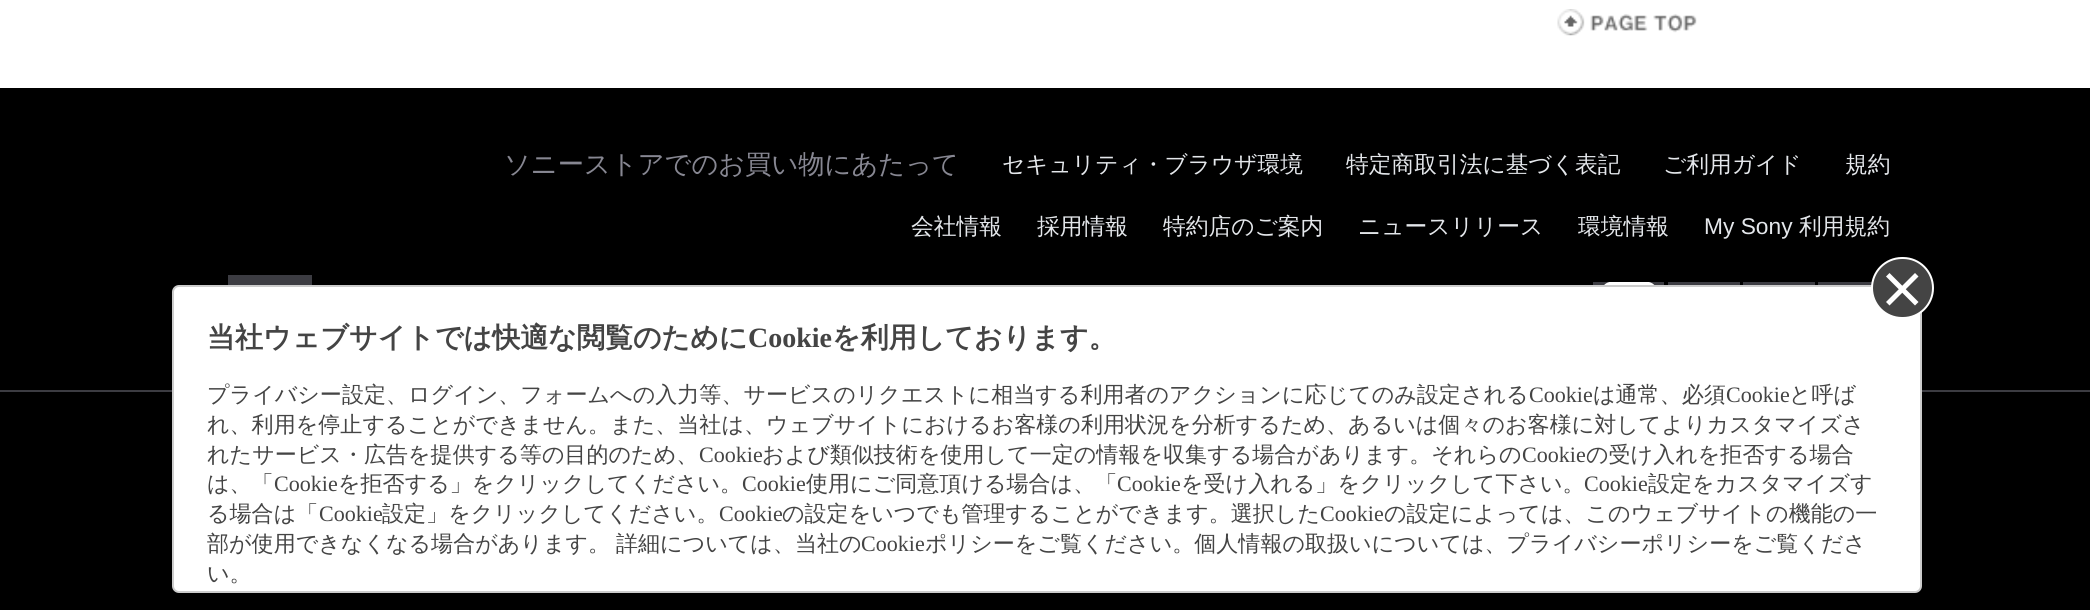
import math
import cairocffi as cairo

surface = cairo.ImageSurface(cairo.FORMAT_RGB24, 2090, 610)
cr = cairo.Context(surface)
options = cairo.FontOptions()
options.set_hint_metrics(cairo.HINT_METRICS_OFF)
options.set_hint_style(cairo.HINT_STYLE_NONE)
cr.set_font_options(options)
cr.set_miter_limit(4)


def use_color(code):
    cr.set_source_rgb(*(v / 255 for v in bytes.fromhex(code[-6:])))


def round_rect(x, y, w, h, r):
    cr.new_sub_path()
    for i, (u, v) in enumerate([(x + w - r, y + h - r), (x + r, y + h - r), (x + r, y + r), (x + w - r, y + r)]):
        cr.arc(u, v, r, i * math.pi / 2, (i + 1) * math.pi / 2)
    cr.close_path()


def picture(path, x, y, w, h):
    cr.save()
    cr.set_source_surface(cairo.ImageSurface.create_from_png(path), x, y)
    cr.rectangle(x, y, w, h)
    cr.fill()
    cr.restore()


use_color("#ffffff")
cr.paint()
picture("img1.png", 1557, 9, 140, 27)
use_color("#000000")
cr.rectangle(0, 88, 2090, 522)
cr.fill()
cr.select_font_face("WenQuanYi Zen Hei Medium")
cr.set_font_size(26.25)
use_color("#878792")
cr.move_to(504, 173)
cr.show_text("ソニーストアでのお買い物にあたって")
cr.set_font_size(22.75)
use_color("#e4e7eb")
cr.move_to(1002, 172)
cr.show_text("セキュリティ・ブラウザ環境")
cr.move_to(1346, 172)
cr.show_text("特定商取引法に基づく表記")
cr.move_to(1663, 172)
cr.show_text("ご利用ガイド")
cr.move_to(1845, 172)
cr.show_text("規約")
cr.move_to(911, 234)
cr.show_text("会社情報")
cr.move_to(1037, 234)
cr.show_text("採用情報")
cr.move_to(1163, 234)
cr.show_text("特約店のご案内")
cr.move_to(1358, 234)
cr.show_text("ニュースリリース")
cr.move_to(1578, 234)
cr.show_text("環境情報")
cr.select_font_face("Liberation Sans")
cr.move_to(1704, 234)
cr.show_text("My Sony")
cr.select_font_face("WenQuanYi Zen Hei Medium")
cr.move_to(1799, 234)
cr.show_text("利用規約")
use_color("#3c3c42")
cr.rectangle(1593, 282, 71, 3)
cr.fill()
picture("img2.png", 1604, 282, 51, 3)
cr.rectangle(1668, 282, 72, 3)
cr.fill()
cr.rectangle(1743, 282, 72, 3)
cr.fill()
cr.rectangle(1818, 282, 54, 3)
cr.fill()
cr.rectangle(228, 275, 84, 10)
cr.fill()
cr.rectangle(0, 390, 2090, 2)
cr.fill()
use_color("#ffffff")
round_rect(173, 286, 1748, 306, 6)
cr.fill_preserve()
use_color("#cccccc")
cr.stroke()
use_color("#444444")
round_rect(1872, 258, 61, 60, 30)
cr.fill_preserve()
use_color("#ffffff")
cr.stroke()
cr.new_path()
cr.move_to(1886, 302)
cr.line_to(1915, 273)
cr.line_to(1918.5, 276.5)
cr.line_to(1889.5, 305.5)
cr.close_path()
cr.fill()
cr.new_path()
cr.move_to(1889.5, 273)
cr.line_to(1918.5, 302)
cr.line_to(1915, 305.5)
cr.line_to(1886, 276.5)
cr.close_path()
cr.fill()
cr.select_font_face("WenQuanYi Zen Hei", cairo.FONT_SLANT_NORMAL, cairo.FONT_WEIGHT_BOLD)
cr.set_font_size(28)
use_color("#444444")
cr.move_to(207, 347)
cr.show_text("当社ウェブサイトでは快適な閲覧のために")
cr.select_font_face("Liberation Serif", cairo.FONT_SLANT_NORMAL, cairo.FONT_WEIGHT_BOLD)
cr.move_to(748, 347)
cr.show_text("Cookie")
cr.select_font_face("WenQuanYi Zen Hei", cairo.FONT_SLANT_NORMAL, cairo.FONT_WEIGHT_BOLD)
cr.move_to(832, 347)
cr.show_text("を利用しております。")
cr.select_font_face("WenQuanYi Zen Hei Medium")
cr.set_font_size(22.05)
cr.move_to(207, 402)
cr.show_text("プライバシー設定、ログイン、フォームへの入力等、サービスのリクエストに相当する利用者のアクションに応じてのみ設定される")
cr.select_font_face("Liberation Serif")
cr.move_to(1529, 402)
cr.show_text("Cookie")
cr.select_font_face("WenQuanYi Zen Hei Medium")
cr.move_to(1593, 402)
cr.show_text("は通常、必須")
cr.select_font_face("Liberation Serif")
cr.move_to(1726, 402)
cr.show_text("Cookie")
cr.select_font_face("WenQuanYi Zen Hei Medium")
cr.move_to(1789, 402)
cr.show_text("と呼ば")
cr.move_to(207, 432)
cr.show_text("れ、利用を停止することができません。また、当社は、ウェブサイトにおけるお客様の利用状況を分析するため、あるいは個々のお客様に対してよりカスタマイズさ")
cr.move_to(207, 462)
cr.show_text("れたサービス・広告を提供する等の目的のため、")
cr.select_font_face("Liberation Serif")
cr.move_to(699, 462)
cr.show_text("Cookie")
cr.select_font_face("WenQuanYi Zen Hei Medium")
cr.move_to(762, 462)
cr.show_text("および類似技術を使用して一定の情報を収集する場合があります。それらの")
cr.select_font_face("Liberation Serif")
cr.move_to(1522, 462)
cr.show_text("Cookie")
cr.select_font_face("WenQuanYi Zen Hei Medium")
cr.move_to(1586, 462)
cr.show_text("の受け入れを拒否する場合")
cr.move_to(207, 491)
cr.show_text("は、「")
cr.select_font_face("Liberation Serif")
cr.move_to(274, 491)
cr.show_text("Cookie")
cr.select_font_face("WenQuanYi Zen Hei Medium")
cr.move_to(338, 491)
cr.show_text("を拒否する」をクリックしてください。")
cr.select_font_face("Liberation Serif")
cr.move_to(742, 491)
cr.show_text("Cookie")
cr.select_font_face("WenQuanYi Zen Hei Medium")
cr.move_to(806, 491)
cr.show_text("使用にご同意頂ける場合は、「")
cr.select_font_face("Liberation Serif")
cr.move_to(1117, 491)
cr.show_text("Cookie")
cr.select_font_face("WenQuanYi Zen Hei Medium")
cr.move_to(1181, 491)
cr.show_text("を受け入れる」をクリックして下さい。")
cr.select_font_face("Liberation Serif")
cr.move_to(1584, 491)
cr.show_text("Cookie")
cr.select_font_face("WenQuanYi Zen Hei Medium")
cr.move_to(1648, 491)
cr.show_text("設定をカスタマイズす")
cr.move_to(207, 521)
cr.show_text("る場合は「")
cr.select_font_face("Liberation Serif")
cr.move_to(319, 521)
cr.show_text("Cookie")
cr.select_font_face("WenQuanYi Zen Hei Medium")
cr.move_to(382, 521)
cr.show_text("設定」をクリックしてください。")
cr.select_font_face("Liberation Serif")
cr.move_to(719, 521)
cr.show_text("Cookie")
cr.select_font_face("WenQuanYi Zen Hei Medium")
cr.move_to(782, 521)
cr.show_text("の設定をいつでも管理することができます。選択した")
cr.select_font_face("Liberation Serif")
cr.move_to(1320, 521)
cr.show_text("Cookie")
cr.select_font_face("WenQuanYi Zen Hei Medium")
cr.move_to(1384, 521)
cr.show_text("の設定によっては、このウェブサイトの機能の一")
cr.move_to(207, 551)
cr.show_text("部が使用できなくなる場合があります。")
cr.move_to(616, 551)
cr.show_text("詳細については、当社の")
cr.select_font_face("Liberation Serif")
cr.move_to(861, 551)
cr.show_text("Cookie")
cr.select_font_face("WenQuanYi Zen Hei Medium")
cr.move_to(925, 551)
cr.show_text("ポリシーをご覧ください。個人情報の取扱いについては、プライバシーポリシーをご覧くださ")
cr.move_to(207, 581)
cr.show_text("い。")
surface.write_to_png("result.png")
